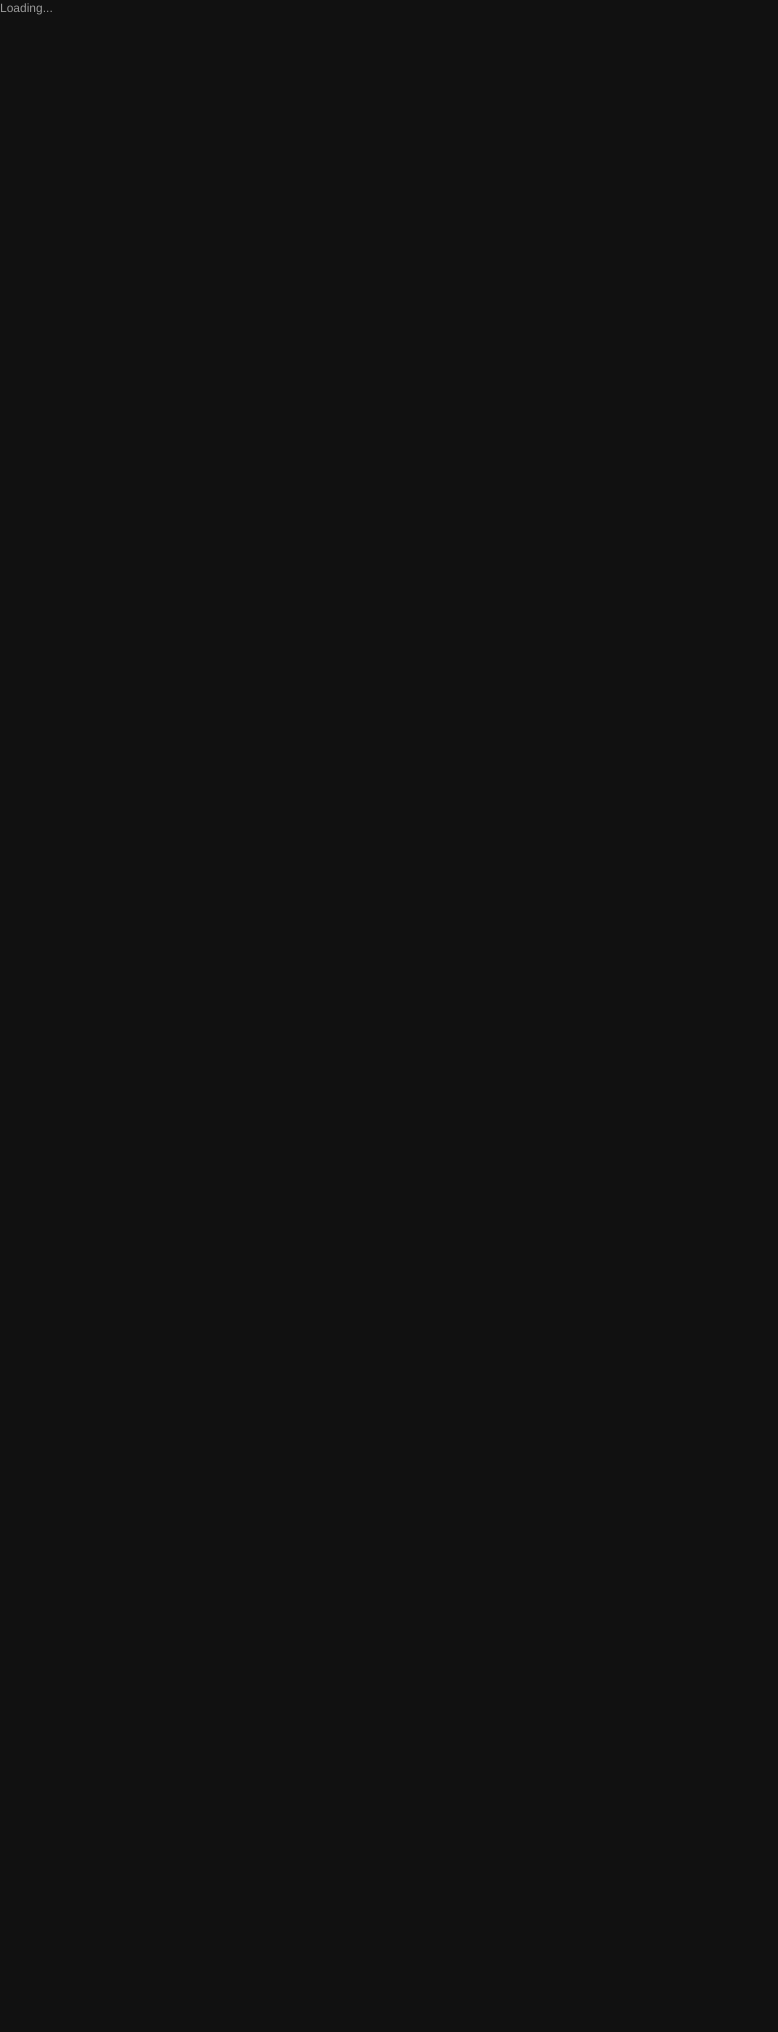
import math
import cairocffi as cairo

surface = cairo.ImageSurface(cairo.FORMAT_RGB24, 778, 2032)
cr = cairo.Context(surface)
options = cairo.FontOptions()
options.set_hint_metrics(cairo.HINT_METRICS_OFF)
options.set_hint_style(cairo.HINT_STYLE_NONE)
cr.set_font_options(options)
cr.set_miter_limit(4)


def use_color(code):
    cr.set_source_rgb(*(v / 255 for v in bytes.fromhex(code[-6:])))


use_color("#111111")
cr.paint()
cr.select_font_face("Liberation Sans")
cr.set_font_size(12)
use_color("#999999")
cr.move_to(0, 12)
cr.show_text("Loading...")
surface.write_to_png("result.png")
